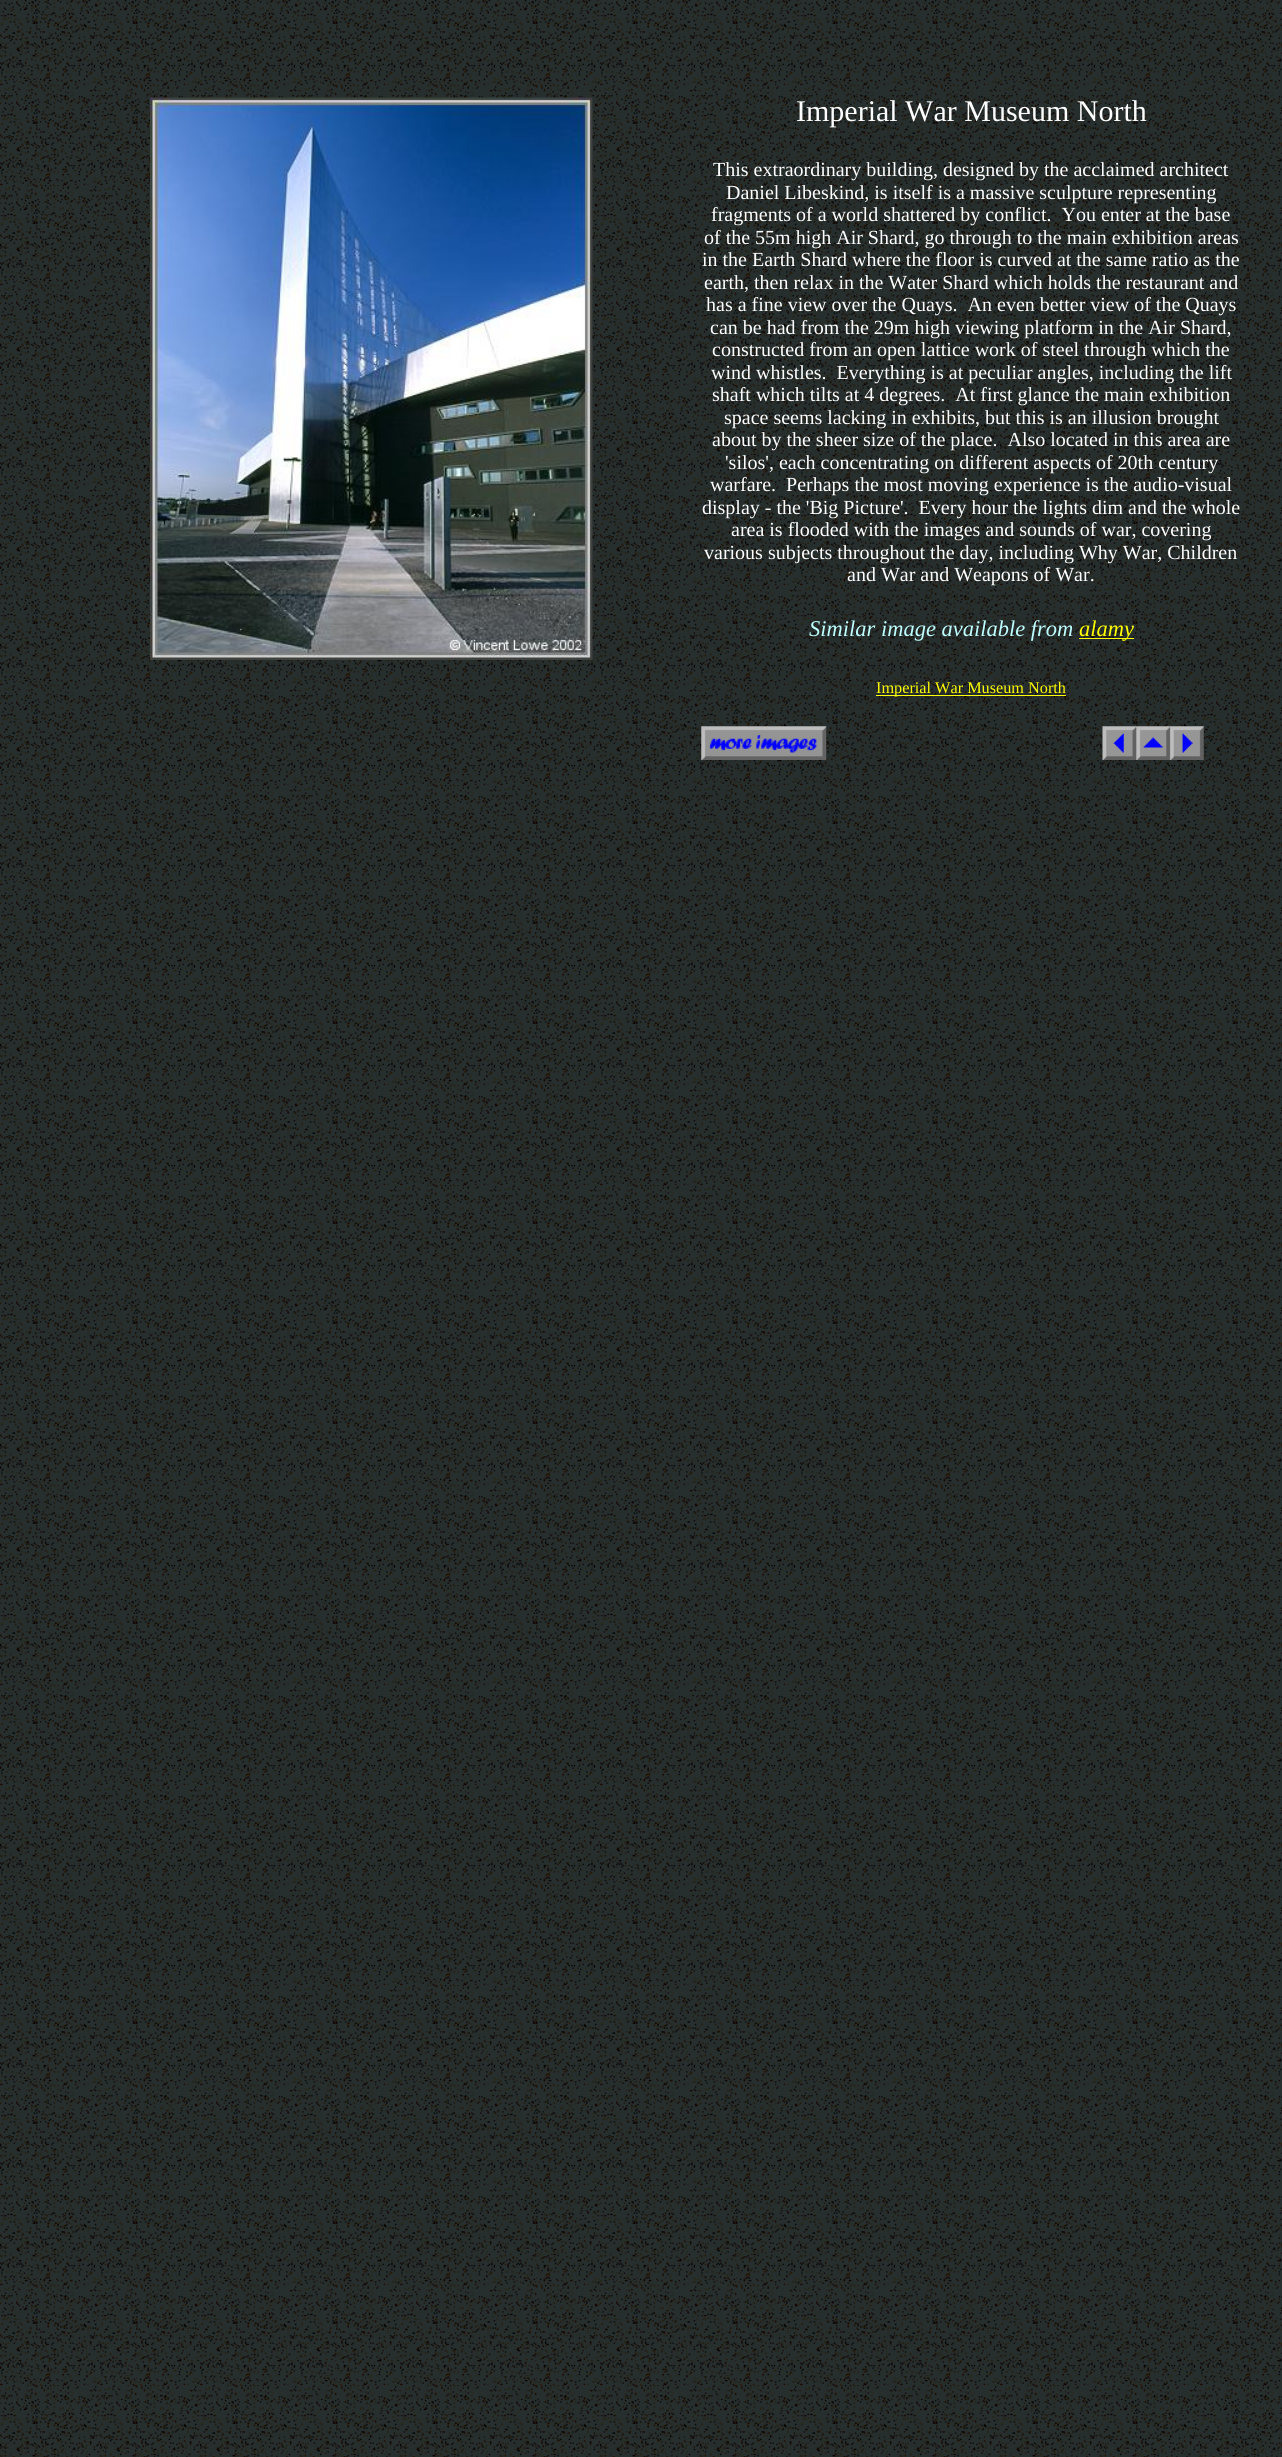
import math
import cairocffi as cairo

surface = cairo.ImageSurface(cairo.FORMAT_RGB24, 1282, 2457)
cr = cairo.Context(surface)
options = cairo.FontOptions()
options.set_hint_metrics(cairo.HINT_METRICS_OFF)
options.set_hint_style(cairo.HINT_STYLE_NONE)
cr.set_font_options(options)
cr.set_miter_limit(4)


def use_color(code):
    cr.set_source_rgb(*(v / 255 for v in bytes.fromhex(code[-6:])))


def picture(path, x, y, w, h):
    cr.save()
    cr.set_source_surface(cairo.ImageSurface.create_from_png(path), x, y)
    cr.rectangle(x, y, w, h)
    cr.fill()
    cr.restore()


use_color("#ffffff")
cr.paint()
picture("img1.png", 0, 0, 1282, 2457)
picture("img2.png", 150, 97, 443, 563)
cr.select_font_face("Liberation Serif")
cr.set_font_size(30)
use_color("#ffffff")
cr.move_to(796, 121)
cr.show_text("Imperial War Museum North")
cr.set_font_size(20)
cr.move_to(713, 176)
cr.show_text("This extraordinary building, designed by the acclaimed architect")
cr.move_to(726, 199)
cr.show_text("Daniel Libeskind, is itself is a massive sculpture representing")
cr.move_to(711, 221)
cr.show_text("fragments of a world shattered by conflict.  You enter at the base")
cr.move_to(704, 244)
cr.show_text("of the 55m high Air Shard, go through to the main exhibition areas")
cr.move_to(702, 266)
cr.show_text("in the Earth Shard where the floor is curved at the same ratio as the")
cr.move_to(704, 289)
cr.show_text("earth, then relax in the Water Shard which holds the restaurant and")
cr.move_to(706, 311)
cr.show_text("has a fine view over the Quays.  An even better view of the Quays")
cr.move_to(710, 334)
cr.show_text("can be had from the 29m high viewing platform in the Air Shard,")
cr.move_to(712, 356)
cr.show_text("constructed from an open lattice work of steel through which the")
cr.move_to(711, 379)
cr.show_text("wind whistles.  Everything is at peculiar angles, including the lift")
cr.move_to(712, 401)
cr.show_text("shaft which tilts at 4 degrees.  At first glance the main exhibition")
cr.move_to(724, 424)
cr.show_text("space seems lacking in exhibits, but this is an illusion brought")
cr.move_to(712, 446)
cr.show_text("about by the sheer size of the place.  Also located in this area are")
cr.move_to(725, 469)
cr.show_text("'silos', each concentrating on different aspects of 20th century")
cr.move_to(710, 491)
cr.show_text("warfare.  Perhaps the most moving experience is the audio-visual")
cr.move_to(702, 514)
cr.show_text("display - the 'Big Picture'.  Every hour the lights dim and the whole")
cr.move_to(731, 536)
cr.show_text("area is flooded with the images and sounds of war, covering")
cr.move_to(704, 559)
cr.show_text("various subjects throughout the day, including Why War, Children")
cr.move_to(847, 581)
cr.show_text("and War and Weapons of War.")
cr.select_font_face("Liberation Serif", cairo.FONT_SLANT_ITALIC)
cr.set_font_size(22.5)
use_color("#c0ffff")
cr.move_to(809, 636)
cr.show_text("Similar image available from")
use_color("#ffff00")
cr.rectangle(1079, 638, 55, 1)
cr.fill()
cr.move_to(1079, 636)
cr.show_text("alamy")
cr.rectangle(876, 695, 190, 1)
cr.fill()
cr.select_font_face("Liberation Serif")
cr.set_font_size(16.25)
cr.move_to(876, 693)
cr.show_text("Imperial War Museum North")
picture("img3.png", 701, 726, 126, 34)
picture("img4.png", 1102, 726, 102, 34)
surface.write_to_png("result.png")
